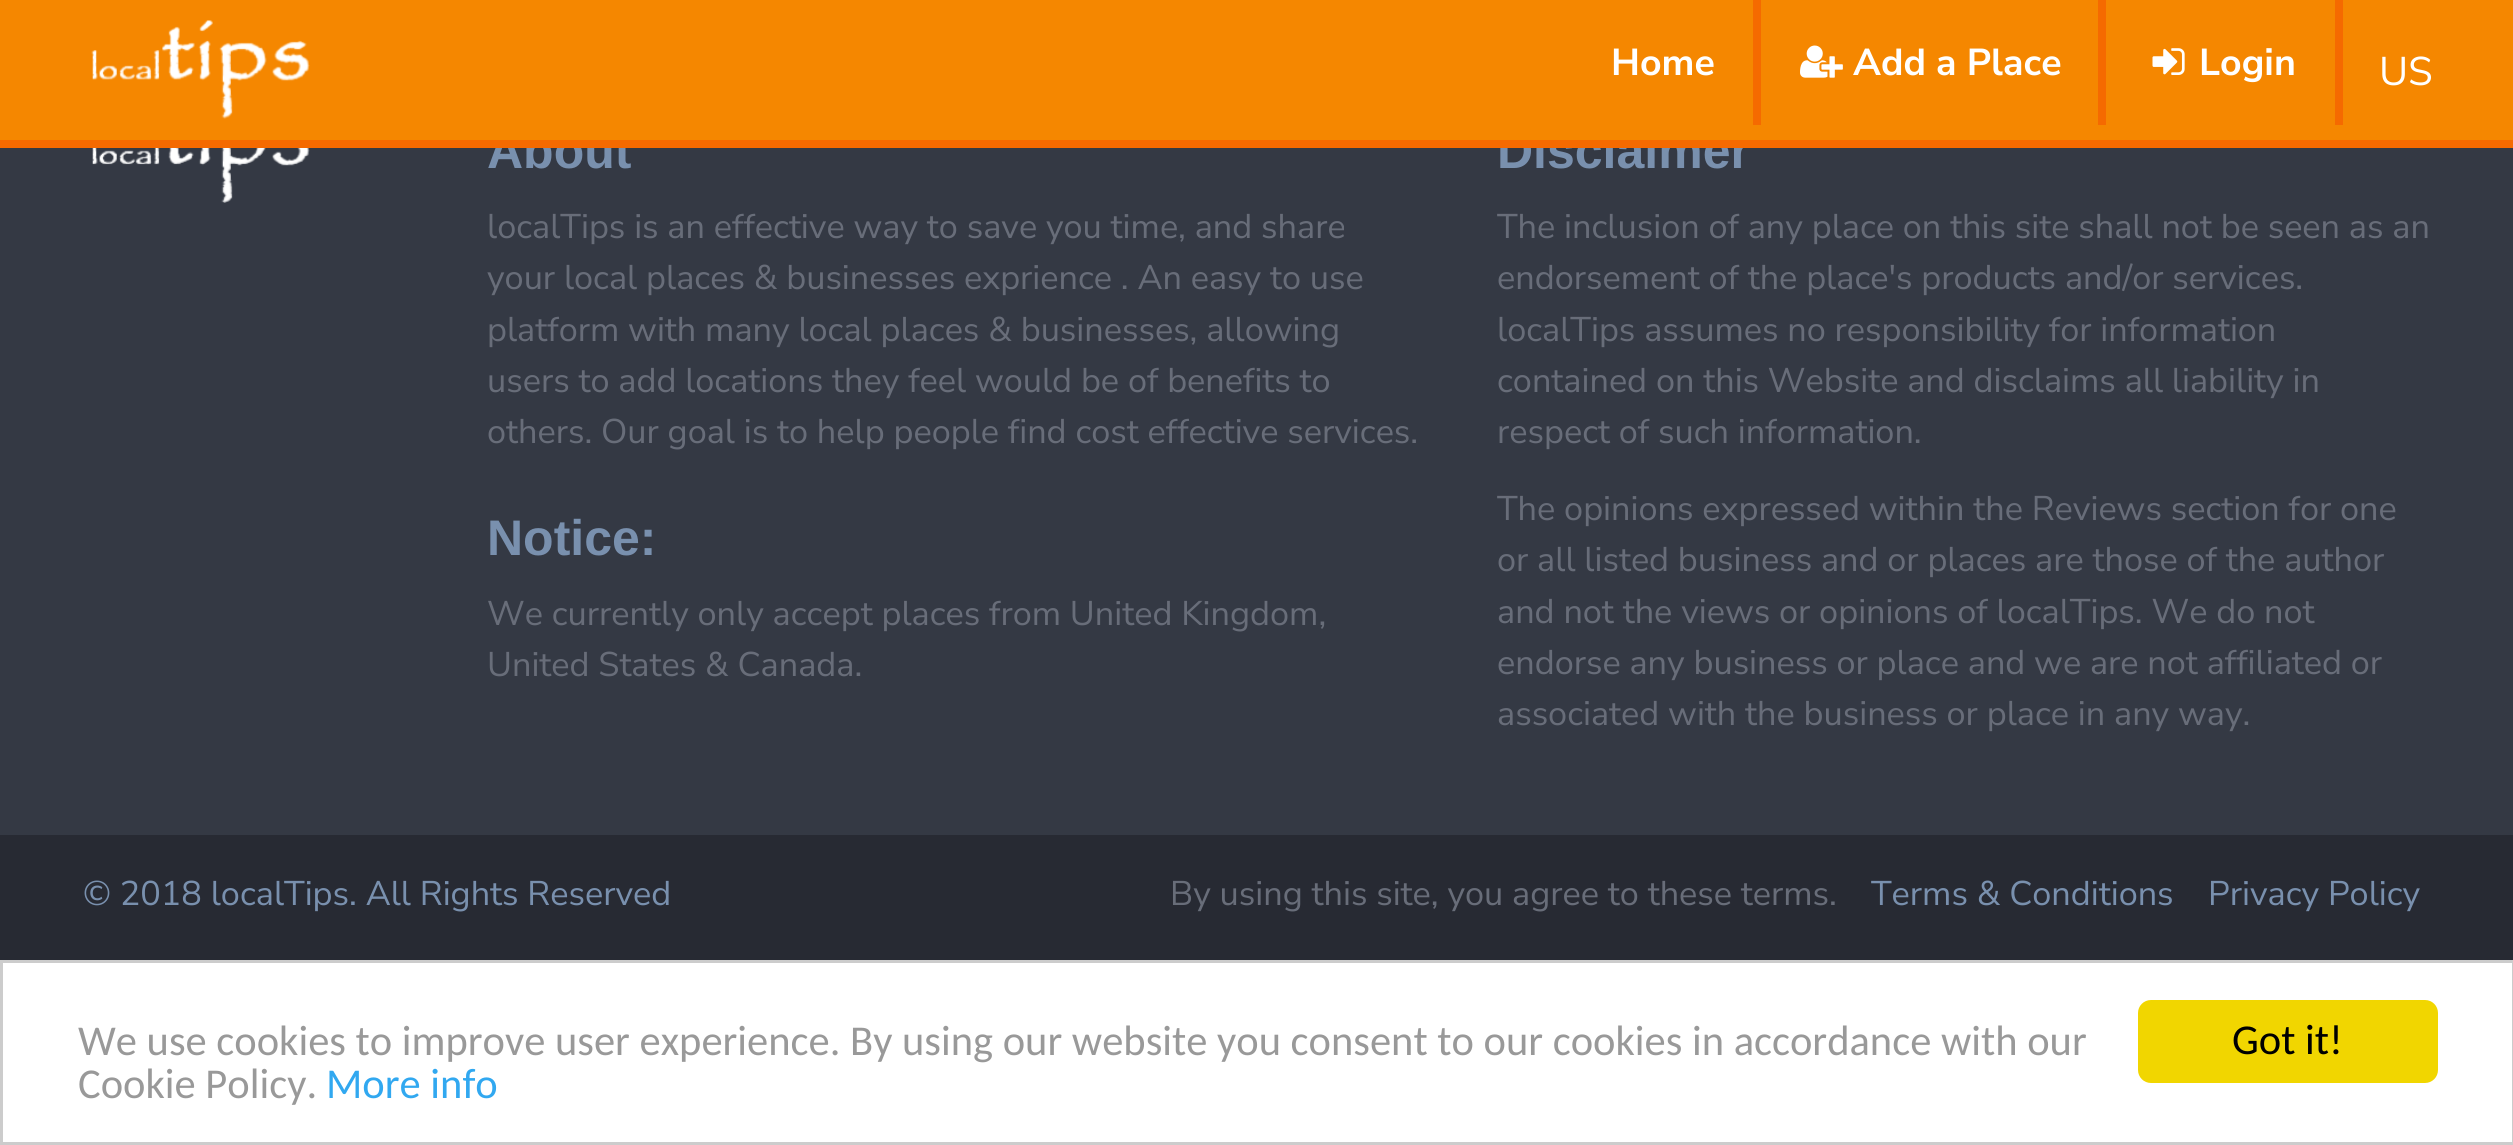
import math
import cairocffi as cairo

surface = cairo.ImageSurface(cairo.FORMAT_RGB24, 2513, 1145)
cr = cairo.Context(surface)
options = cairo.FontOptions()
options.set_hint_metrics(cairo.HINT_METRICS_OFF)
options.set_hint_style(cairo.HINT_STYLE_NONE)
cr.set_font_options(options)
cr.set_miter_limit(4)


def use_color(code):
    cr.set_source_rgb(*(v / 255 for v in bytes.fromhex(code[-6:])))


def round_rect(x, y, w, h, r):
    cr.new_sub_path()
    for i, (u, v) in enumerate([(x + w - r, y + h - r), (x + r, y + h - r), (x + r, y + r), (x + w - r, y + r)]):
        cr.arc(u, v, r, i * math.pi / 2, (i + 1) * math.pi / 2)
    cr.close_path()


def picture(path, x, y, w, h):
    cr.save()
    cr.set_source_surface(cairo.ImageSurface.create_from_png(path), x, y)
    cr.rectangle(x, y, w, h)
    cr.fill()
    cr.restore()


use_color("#272a33")
cr.paint()
use_color("#343944")
cr.rectangle(0, 148, 2513, 687)
cr.fill()
cr.select_font_face("Liberation Sans", cairo.FONT_SLANT_NORMAL, cairo.FONT_WEIGHT_BOLD)
cr.set_font_size(50)
use_color("#7990ae")
cr.move_to(487, 168)
cr.show_text("About")
cr.move_to(1497, 168)
cr.show_text("Disclaimer")
use_color("#f58700")
cr.rectangle(0, 0, 2513, 140)
cr.fill()
use_color("#f56a00")
cr.rectangle(0, 140, 2513, 8)
cr.fill()
picture("img1.png", 91, 20, 219, 99)
cr.rectangle(1753, 0, 8, 125)
cr.fill()
cr.select_font_face("Nunito Sans", cairo.FONT_SLANT_NORMAL, cairo.FONT_WEIGHT_BOLD)
cr.set_font_size(37.5)
use_color("#ffffff")
cr.move_to(1611, 75)
cr.show_text("Home")
use_color("#f56a00")
cr.rectangle(2098, 0, 8, 125)
cr.fill()
picture("img2.png", 1800, 45, 43, 33)
use_color("#ffffff")
cr.move_to(1853, 75)
cr.show_text("Add a Place")
use_color("#f56a00")
cr.rectangle(2335, 0, 8, 125)
cr.fill()
picture("img3.png", 2152, 48, 33, 27)
use_color("#ffffff")
cr.move_to(2199, 75)
cr.show_text("Login")
cr.select_font_face("Nunito Sans")
cr.set_font_size(40)
cr.move_to(2379, 85)
cr.show_text("US")
picture("img4.png", 92, 148, 218, 55)
cr.set_font_size(34.25)
use_color("#686d79")
cr.move_to(487, 238)
cr.show_text("localTips is an effective way to save you time, and share")
cr.move_to(487, 289)
cr.show_text("your local places & businesses exprience . An easy to use")
cr.move_to(487, 341)
cr.show_text("platform with many local places & businesses, allowing")
cr.move_to(487, 392)
cr.show_text("users to add locations they feel would be of benefits to")
cr.move_to(487, 443)
cr.show_text("others. Our goal is to help people find cost effective services.")
cr.select_font_face("Liberation Sans", cairo.FONT_SLANT_NORMAL, cairo.FONT_WEIGHT_BOLD)
cr.set_font_size(50)
use_color("#7990ae")
cr.move_to(487, 555)
cr.show_text("Notice:")
cr.select_font_face("Nunito Sans")
cr.set_font_size(34.25)
use_color("#686d79")
cr.move_to(487, 625)
cr.show_text("We currently only accept places from United Kingdom,")
cr.move_to(487, 676)
cr.show_text("United States & Canada.")
cr.move_to(1497, 238)
cr.show_text("The inclusion of any place on this site shall not be seen as an")
cr.move_to(1497, 289)
cr.show_text("endorsement of the place's products and/or services.")
cr.move_to(1497, 341)
cr.show_text("localTips assumes no responsibility for information")
cr.move_to(1497, 392)
cr.show_text("contained on this Website and disclaims all liability in")
cr.move_to(1497, 443)
cr.show_text("respect of such information.")
cr.move_to(1497, 520)
cr.show_text("The opinions expressed within the Reviews section for one")
cr.move_to(1497, 571)
cr.show_text("or all listed business and or places are those of the author")
cr.move_to(1497, 623)
cr.show_text("and not the views or opinions of localTips. We do not")
cr.move_to(1497, 674)
cr.show_text("endorse any business or place and we are not affiliated or")
cr.move_to(1497, 725)
cr.show_text("associated with the business or place in any way.")
use_color("#7990ae")
cr.move_to(83, 905)
cr.show_text("© 2018 localTips. All Rights Reserved")
use_color("#686d79")
cr.move_to(1170, 905)
cr.show_text("By using this site, you agree to these terms.")
use_color("#7990ae")
cr.move_to(1871, 905)
cr.show_text("Terms & Conditions")
cr.move_to(2208, 905)
cr.show_text("Privacy Policy")
use_color("#ffffff")
cr.rectangle(1.5, 961.5, 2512, 182)
cr.fill_preserve()
use_color("#cccccc")
cr.set_line_width(3)
cr.stroke()
cr.select_font_face("Carlito")
cr.set_font_size(42.5)
use_color("#999999")
cr.move_to(78, 1055)
cr.show_text("We use cookies to improve user experience. By using our website you consent to our cookies in accordance with our")
cr.move_to(78, 1098)
cr.show_text("Cookie Policy.")
use_color("#31a8f0")
cr.move_to(326, 1098)
cr.show_text("More info")
use_color("#f1d600")
round_rect(2138, 1000, 300, 83, 13)
cr.fill()
use_color("#000000")
cr.move_to(2232, 1054)
cr.show_text("Got it!")
surface.write_to_png("result.png")
